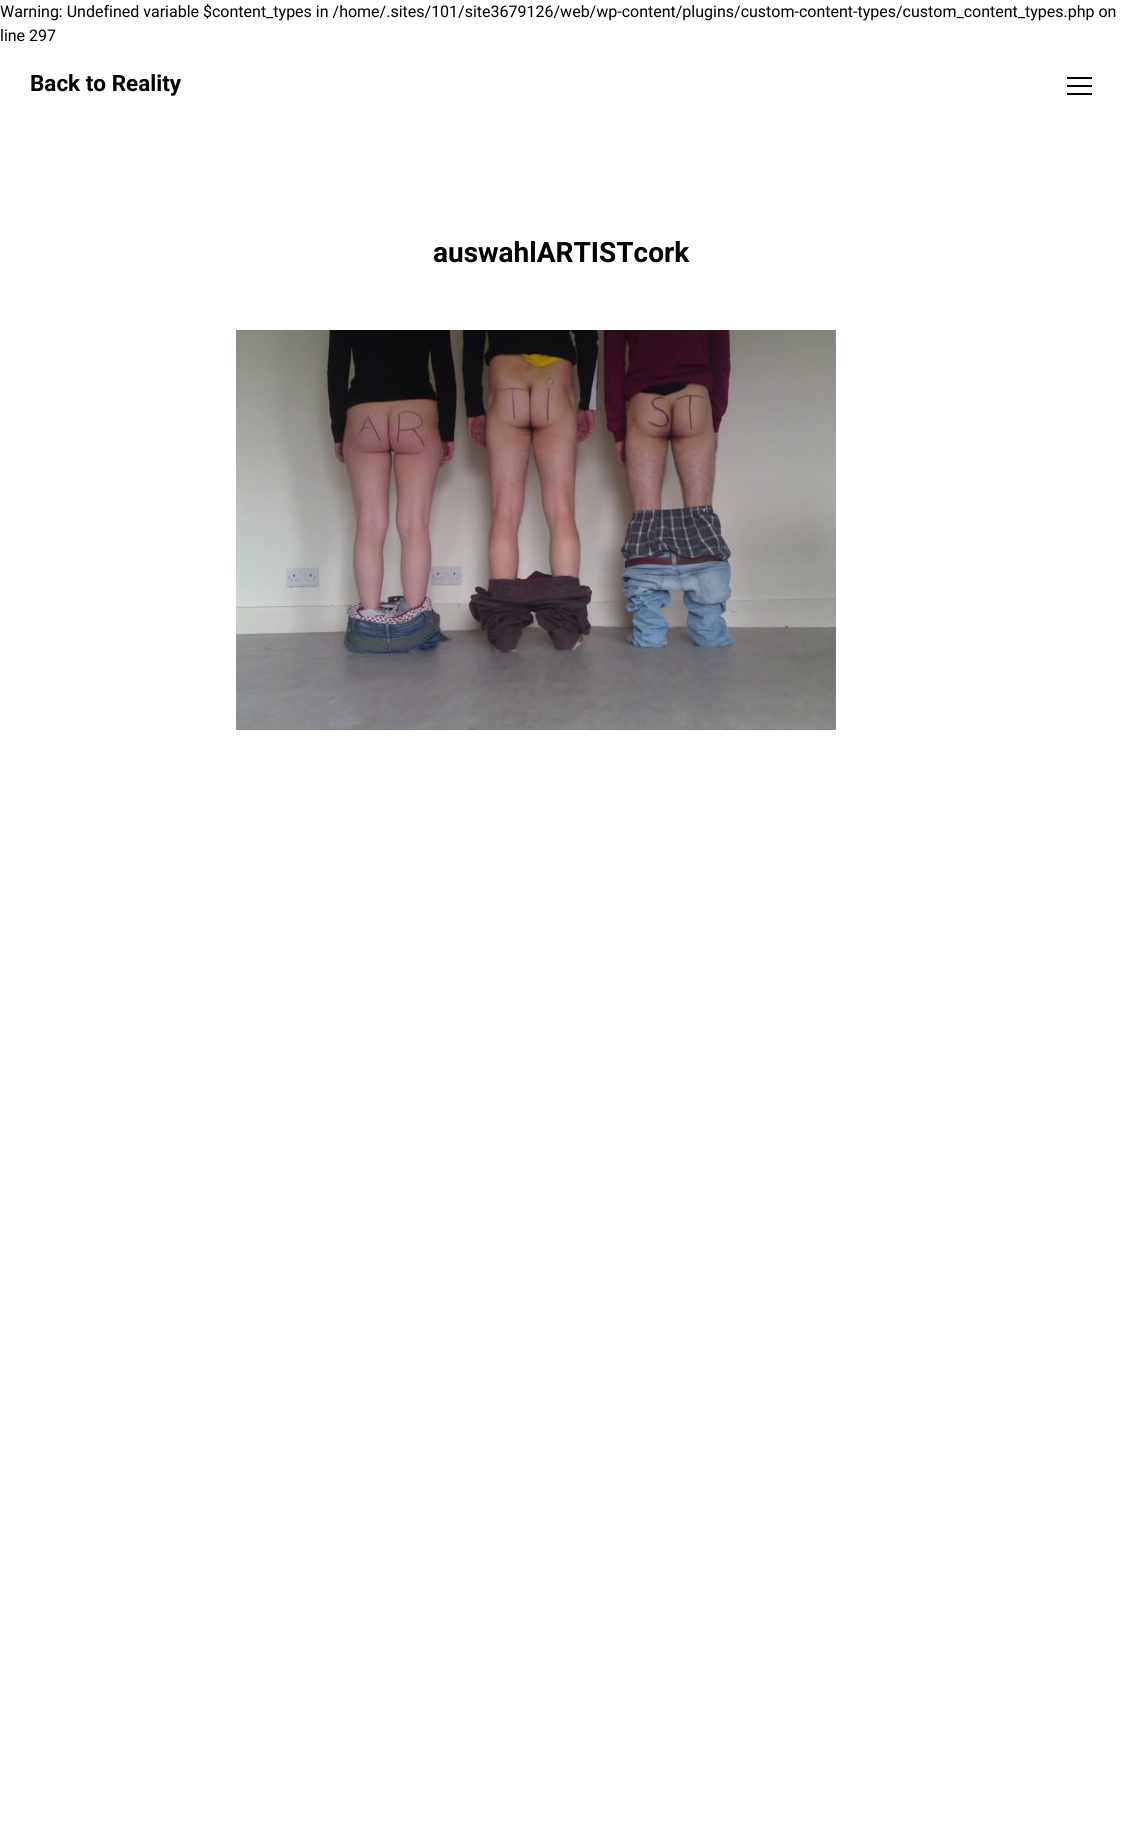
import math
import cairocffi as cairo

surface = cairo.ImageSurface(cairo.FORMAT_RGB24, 1122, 1828)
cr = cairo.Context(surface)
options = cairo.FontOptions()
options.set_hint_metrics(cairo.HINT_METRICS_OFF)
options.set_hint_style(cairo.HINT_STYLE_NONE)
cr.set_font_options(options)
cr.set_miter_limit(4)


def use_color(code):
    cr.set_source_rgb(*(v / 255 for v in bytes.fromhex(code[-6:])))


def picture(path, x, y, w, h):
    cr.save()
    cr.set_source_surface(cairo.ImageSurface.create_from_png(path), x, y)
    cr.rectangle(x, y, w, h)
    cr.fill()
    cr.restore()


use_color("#ffffff")
cr.paint()
cr.select_font_face("Roboto")
cr.set_font_size(16)
use_color("#000000")
cr.move_to(0, 17)
cr.show_text("Warning: Undefined variable $content_types in /home/.sites/101/site3679126/web/wp-content/plugins/custom-content-types/custom_content_types.php on")
cr.move_to(0, 41)
cr.show_text("line 297")
cr.select_font_face("Roboto", cairo.FONT_SLANT_NORMAL, cairo.FONT_WEIGHT_BOLD)
cr.set_font_size(22.5)
cr.move_to(30, 91)
cr.show_text("Back to Reality")
cr.rectangle(1067, 77, 25, 2)
cr.fill()
cr.rectangle(1067, 85, 25, 2)
cr.fill()
cr.rectangle(1067, 93, 25, 2)
cr.fill()
cr.set_font_size(28)
cr.move_to(433, 262)
cr.show_text("auswahlARTISTcork")
picture("img1.png", 236, 330, 600, 400)
surface.write_to_png("result.png")
